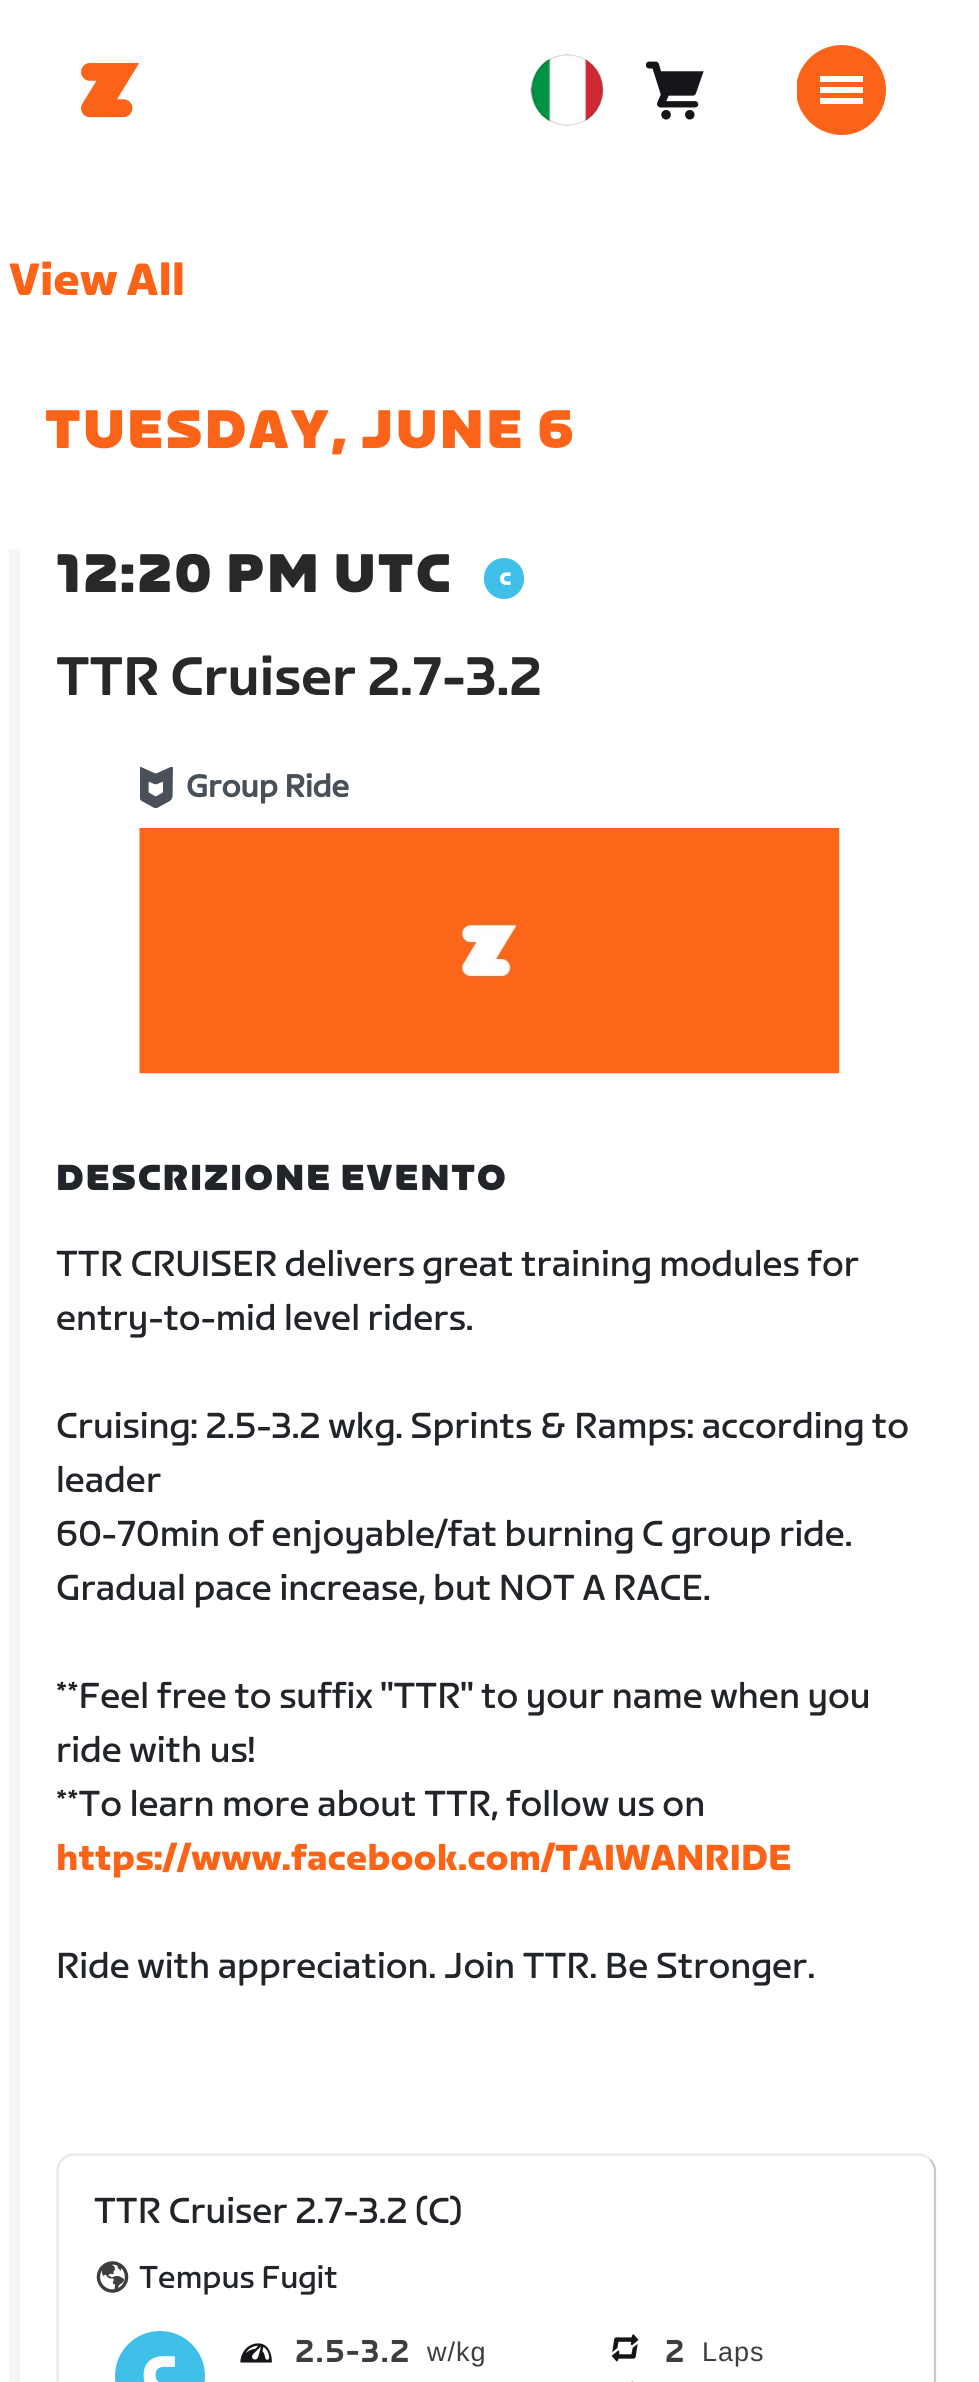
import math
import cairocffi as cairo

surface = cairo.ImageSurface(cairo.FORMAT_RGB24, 979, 2382)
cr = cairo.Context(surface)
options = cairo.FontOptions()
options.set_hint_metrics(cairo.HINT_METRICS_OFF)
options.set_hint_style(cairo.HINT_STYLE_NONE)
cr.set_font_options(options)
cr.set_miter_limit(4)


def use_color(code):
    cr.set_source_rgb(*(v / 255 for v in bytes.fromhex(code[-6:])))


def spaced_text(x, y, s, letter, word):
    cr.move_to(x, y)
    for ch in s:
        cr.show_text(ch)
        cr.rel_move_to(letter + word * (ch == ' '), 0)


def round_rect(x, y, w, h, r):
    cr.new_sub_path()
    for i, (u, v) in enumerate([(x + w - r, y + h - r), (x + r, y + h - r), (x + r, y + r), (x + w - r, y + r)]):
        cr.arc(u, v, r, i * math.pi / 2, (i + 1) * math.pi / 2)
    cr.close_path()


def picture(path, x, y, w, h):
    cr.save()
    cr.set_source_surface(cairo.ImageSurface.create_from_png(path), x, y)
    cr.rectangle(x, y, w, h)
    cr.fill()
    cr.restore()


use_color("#ffffff")
cr.paint()
picture("img1.png", 81, 63, 59, 55)
picture("img2.png", 530, 54, 74, 72)
picture("img3.png", 646, 61, 58, 59)
cr.save()
cr.rectangle(797, 45, 90, 90)
cr.clip()
use_color("#fb6418")
cr.new_path()
cr.move_to(796, 90)
cr.curve_to(796, 65, 817, 45, 842, 45)
cr.curve_to(866, 45, 886, 65, 886, 90)
cr.curve_to(886, 115, 866, 135, 842, 135)
cr.curve_to(817, 135, 796, 115, 796, 90)
cr.close_path()
cr.fill()
cr.restore()
use_color("#ffffff")
cr.rectangle(820, 76, 43, 6)
cr.fill()
cr.rectangle(820, 87, 43, 6)
cr.fill()
cr.rectangle(820, 98, 43, 6)
cr.fill()
cr.select_font_face("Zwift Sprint", cairo.FONT_SLANT_NORMAL, cairo.FONT_WEIGHT_BOLD)
cr.set_font_size(45)
use_color("#fb6418")
cr.move_to(9, 295)
cr.show_text("View All")
cr.select_font_face("Zwift Sprint Black")
cr.set_font_size(54)
spaced_text(45, 448, "TUESDAY, JUNE 6", 2.25, 0)
use_color("#f5f5f5")
cr.rectangle(9, 549, 11, 1833)
cr.fill()
use_color("#282828")
spaced_text(56, 592, "12:20 PM UTC", 2.25, 0)
use_color("#3ec0e9")
round_rect(484, 558, 40, 41, 20)
cr.fill()
picture("img4.png", 500, 572, 11, 13)
cr.select_font_face("Zwift Sprint Medium")
use_color("#282828")
cr.move_to(56, 695)
cr.show_text("TTR Cruiser 2.7-3.2")
picture("img5.png", 140, 767, 33, 41)
cr.select_font_face("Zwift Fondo", cairo.FONT_SLANT_NORMAL, cairo.FONT_WEIGHT_BOLD)
cr.set_font_size(31.5)
use_color("#495057")
cr.move_to(186, 797)
cr.show_text("Group Ride")
picture("img6.png", 139, 828, 701, 246)
cr.select_font_face("Zwift Sprint Black")
cr.set_font_size(36)
use_color("#212529")
spaced_text(56, 1190, "DESCRIZIONE EVENTO", 1.75, 0)
cr.select_font_face("Zwift Sprint")
cr.move_to(56, 1276)
cr.show_text("TTR CRUISER delivers great training modules for")
cr.move_to(56, 1330)
cr.show_text("entry-to-mid level riders.")
cr.move_to(56, 1438)
cr.show_text("Cruising: 2.5-3.2 wkg. Sprints & Ramps: according to")
cr.move_to(56, 1492)
cr.show_text("leader")
cr.move_to(56, 1546)
cr.show_text("60-70min of enjoyable/fat burning C group ride.")
cr.move_to(56, 1600)
cr.show_text("Gradual pace increase, but NOT A RACE.")
cr.move_to(56, 1708)
cr.show_text("**Feel free to suffix \"TTR\" to your name when you")
cr.move_to(56, 1762)
cr.show_text("ride with us!")
cr.move_to(56, 1816)
cr.show_text("**To learn more about TTR, follow us on")
cr.select_font_face("Zwift Sprint", cairo.FONT_SLANT_NORMAL, cairo.FONT_WEIGHT_BOLD)
use_color("#fb6418")
cr.move_to(56, 1870)
cr.show_text("https://www.facebook.com/TAIWANRIDE")
cr.select_font_face("Zwift Sprint")
use_color("#212529")
cr.move_to(56, 1978)
cr.show_text("Ride with appreciation. Join TTR. Be Stronger.")
cr.new_path()
cr.move_to(930, 2159.5)
cr.curve_to(933, 2162.5, 935, 2167, 935, 2171)
cr.line_to(935, 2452.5)
cr.curve_to(935, 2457, 933, 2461.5, 930, 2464.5)
cr.curve_to(927, 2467.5, 922.5, 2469.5, 918, 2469.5)
cr.line_to(74, 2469.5)
cr.curve_to(70, 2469.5, 65.5, 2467.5, 62.5, 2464.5)
use_color("#c9c9c9")
cr.set_line_width(2.2)
cr.stroke()
cr.new_path()
cr.move_to(62.5, 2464.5)
cr.curve_to(59, 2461.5, 57.5, 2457, 57.5, 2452.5)
cr.line_to(57.5, 2171)
cr.curve_to(57.5, 2167, 59, 2162.5, 62.5, 2159.5)
cr.curve_to(65.5, 2156, 70, 2154.5, 74, 2154.5)
cr.line_to(918, 2154.5)
cr.curve_to(922.5, 2154.5, 927, 2156, 930, 2159.5)
cr.set_source_rgba(0.8, 0.8, 0.8, 0.45)
cr.stroke()
use_color("#212529")
cr.move_to(94, 2223)
cr.show_text("TTR Cruiser 2.7-3.2 (C)")
picture("img7.png", 96, 2261, 33, 32)
cr.set_font_size(31.5)
cr.move_to(139, 2288)
cr.show_text("Tempus Fugit")
use_color("#3ec0e9")
cr.new_path()
cr.arc(160, 2376, 45, 0, 2 * math.pi)
cr.fill()
picture("img8.png", 143, 2356, 32, 26)
picture("img9.png", 240, 2343, 32, 20)
cr.select_font_face("Zwift Sprint Medium")
use_color("#3e3e3e")
spaced_text(295, 2362, "2.5", 1.75, 0)
spaced_text(346, 2361, "-", 1.75, 0)
spaced_text(361, 2362, "3.2", 1.75, 0)
cr.select_font_face("Liberation Sans")
cr.set_font_size(27)
spaced_text(427, 2361, "w/kg", 1, 0)
picture("img10.png", 611, 2334, 28, 28)
cr.select_font_face("Zwift Sprint Medium")
cr.set_font_size(31.5)
spaced_text(665, 2362, "2", 1.75, 0)
cr.select_font_face("Liberation Sans")
cr.set_font_size(27)
spaced_text(702, 2361, "Laps", 1, 0)
picture("img11.png", 631, 2381, 3, 1)
surface.write_to_png("result.png")
